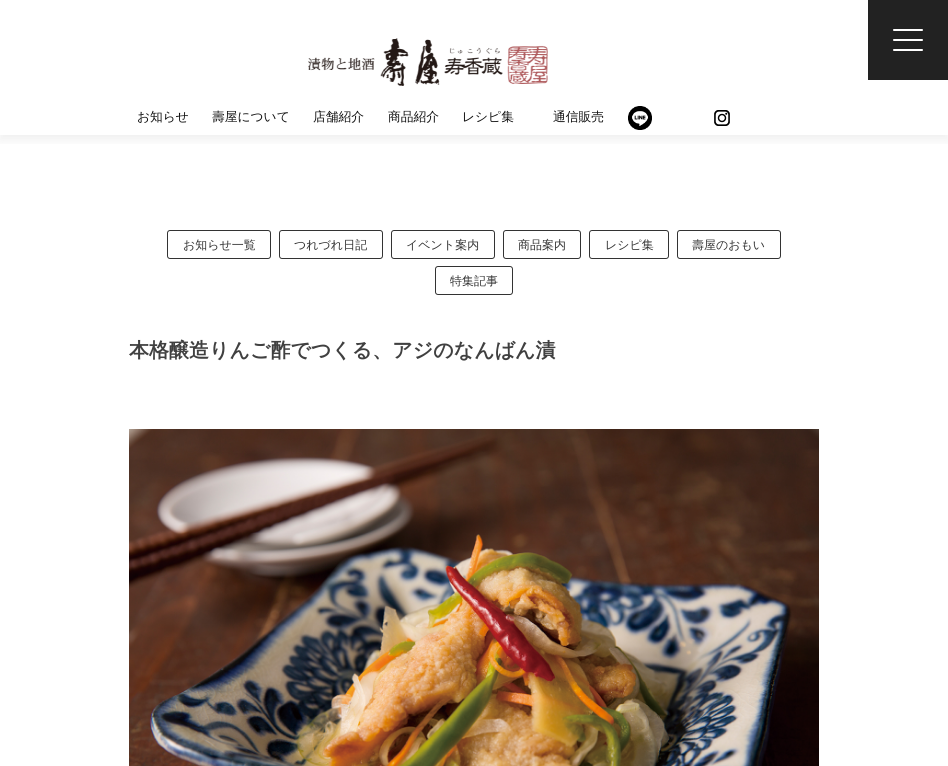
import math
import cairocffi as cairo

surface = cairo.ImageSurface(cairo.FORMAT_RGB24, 948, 766)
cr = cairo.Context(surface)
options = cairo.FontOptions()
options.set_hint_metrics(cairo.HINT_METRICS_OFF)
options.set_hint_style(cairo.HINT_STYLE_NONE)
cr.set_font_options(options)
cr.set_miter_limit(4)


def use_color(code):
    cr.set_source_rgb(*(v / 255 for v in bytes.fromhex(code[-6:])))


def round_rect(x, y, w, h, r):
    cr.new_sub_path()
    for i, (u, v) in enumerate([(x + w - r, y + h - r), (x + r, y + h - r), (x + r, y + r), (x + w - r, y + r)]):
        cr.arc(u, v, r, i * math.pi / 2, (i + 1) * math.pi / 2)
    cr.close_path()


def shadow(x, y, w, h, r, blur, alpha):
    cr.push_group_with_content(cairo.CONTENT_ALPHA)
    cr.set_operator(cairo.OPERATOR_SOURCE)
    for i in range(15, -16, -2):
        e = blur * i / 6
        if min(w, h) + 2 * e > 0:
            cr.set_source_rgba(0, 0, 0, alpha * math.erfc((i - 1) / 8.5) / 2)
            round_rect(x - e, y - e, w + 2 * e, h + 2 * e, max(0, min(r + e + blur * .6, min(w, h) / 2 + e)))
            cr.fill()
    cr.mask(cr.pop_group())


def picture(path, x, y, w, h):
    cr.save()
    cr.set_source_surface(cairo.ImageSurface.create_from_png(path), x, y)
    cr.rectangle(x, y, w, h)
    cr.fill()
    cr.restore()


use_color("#ffffff")
cr.paint()
cr.save()
cr.rectangle(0, 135, 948, 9)
cr.clip()
use_color("#323232")
shadow(0, 29, 948, 111, 0, 5.5, 0.08)
cr.restore()
use_color("#222222")
cr.rectangle(868, 0, 80, 80)
cr.fill()
use_color("#ffffff")
round_rect(893, 29, 30, 2, 1)
cr.fill()
round_rect(893, 39, 30, 2, 1)
cr.fill()
round_rect(893, 49, 30, 2, 1)
cr.fill()
picture("img1.png", 308, 38, 240, 48)
cr.select_font_face("WenQuanYi Zen Hei Medium")
cr.set_font_size(12.75)
use_color("#111111")
cr.move_to(137, 121)
cr.show_text("お知らせ")
cr.move_to(212, 121)
cr.show_text("壽屋について")
cr.move_to(313, 121)
cr.show_text("店舗紹介")
cr.move_to(388, 121)
cr.show_text("商品紹介")
cr.move_to(462, 121)
cr.show_text("レシピ集")
cr.move_to(553, 121)
cr.show_text("通信販売")
picture("img2.png", 628, 106, 24, 24)
picture("img3.png", 714, 110, 16, 16)
round_rect(167.5, 230.5, 103, 28, 2.5)
use_color("#333333")
cr.set_line_width(1)
cr.stroke()
cr.set_font_size(12)
cr.move_to(183, 249)
cr.show_text("お知らせ一覧")
round_rect(279.5, 230.5, 103, 28, 2.5)
cr.stroke()
cr.move_to(294, 249)
cr.show_text("つれづれ日記")
round_rect(391.5, 230.5, 103, 28, 2.5)
cr.stroke()
cr.move_to(406, 249)
cr.show_text("イベント案内")
round_rect(503.5, 230.5, 77, 28, 2.5)
cr.stroke()
cr.move_to(518, 249)
cr.show_text("商品案内")
round_rect(589.5, 230.5, 79, 28, 2.5)
cr.stroke()
cr.move_to(605, 249)
cr.show_text("レシピ集")
round_rect(677.5, 230.5, 103, 28, 2.5)
cr.stroke()
cr.move_to(692, 249)
cr.show_text("壽屋のおもい")
round_rect(435.5, 266.5, 77, 28, 2.5)
cr.stroke()
cr.move_to(450, 285)
cr.show_text("特集記事")
cr.select_font_face("WenQuanYi Zen Hei", cairo.FONT_SLANT_NORMAL, cairo.FONT_WEIGHT_BOLD)
cr.set_font_size(20)
use_color("#404040")
cr.move_to(129, 357)
cr.show_text("本格醸造りんご酢でつくる、アジのなんばん漬")
picture("img4.png", 129, 429, 690, 337)
surface.write_to_png("result.png")
